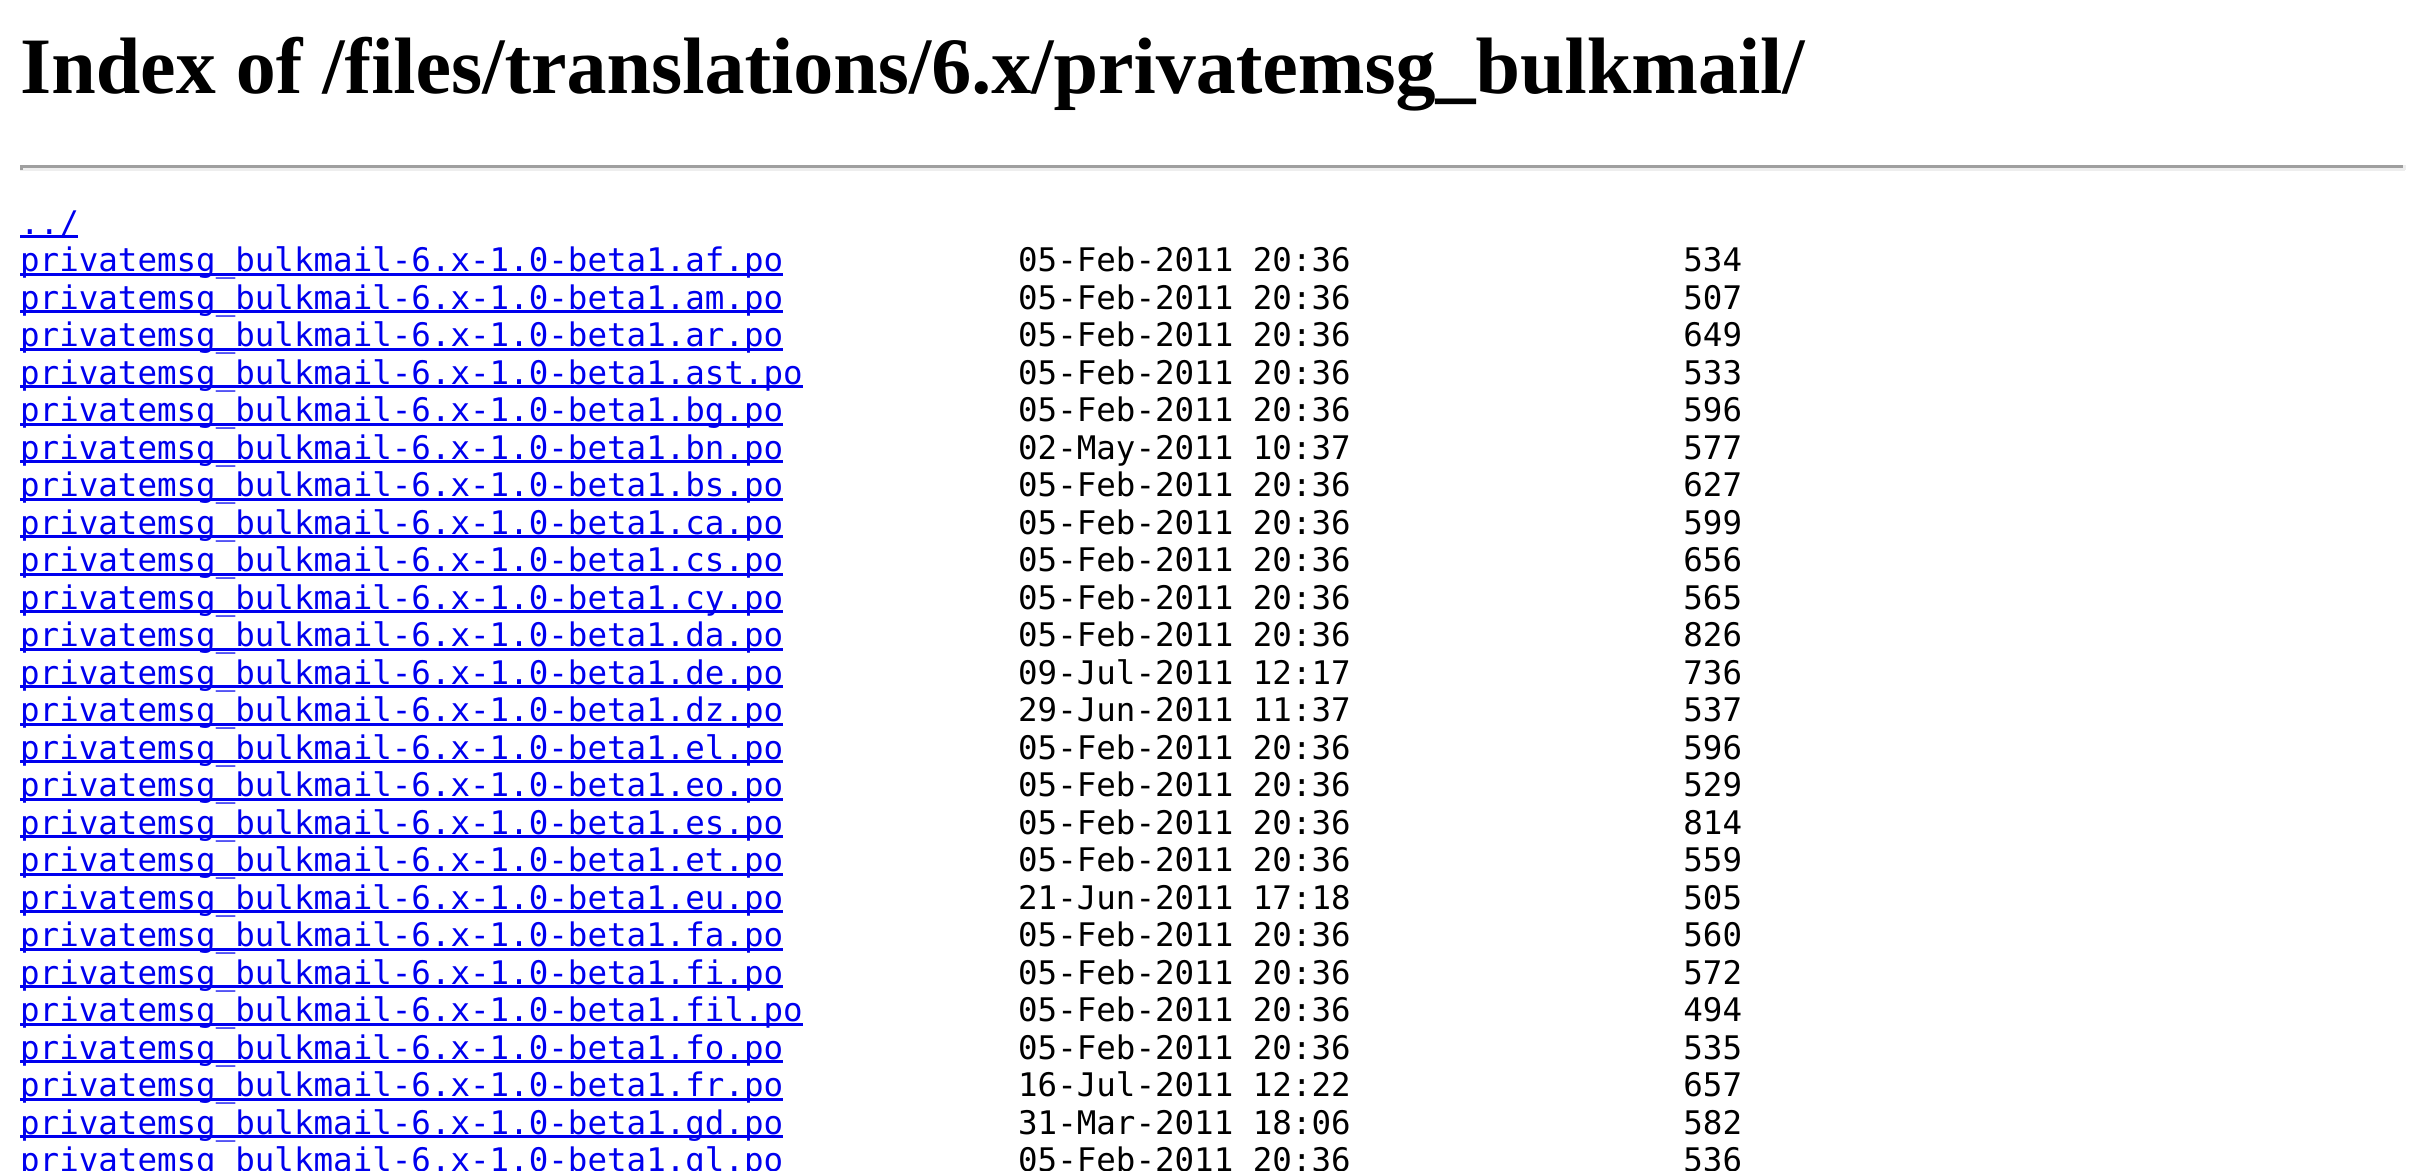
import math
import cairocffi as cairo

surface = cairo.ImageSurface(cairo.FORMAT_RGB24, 2425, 1171)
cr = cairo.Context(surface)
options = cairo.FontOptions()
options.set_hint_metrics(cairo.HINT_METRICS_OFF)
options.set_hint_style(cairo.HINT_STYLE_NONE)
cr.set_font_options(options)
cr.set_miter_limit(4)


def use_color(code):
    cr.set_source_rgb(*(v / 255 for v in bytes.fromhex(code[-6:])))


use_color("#ffffff")
cr.paint()
cr.select_font_face("Liberation Serif", cairo.FONT_SLANT_NORMAL, cairo.FONT_WEIGHT_BOLD)
cr.set_font_size(80)
use_color("#000000")
cr.move_to(20, 93)
cr.show_text("Index of /files/translations/6.x/privatemsg_bulkmail/")
use_color("#9f9f9f")
cr.rectangle(20, 165, 2385, 3)
cr.fill()
use_color("#eeeeee")
cr.rectangle(2403, 165, 3, 5)
cr.fill()
cr.rectangle(20, 168, 2385, 3)
cr.fill()
use_color("#9f9f9f")
cr.rectangle(20, 165, 3, 5)
cr.fill()
use_color("#0000ee")
cr.rectangle(20, 235, 58, 3)
cr.fill()
cr.select_font_face("DejaVu Sans Mono")
cr.set_font_size(32.5)
cr.move_to(20, 234)
cr.show_text("../")
cr.rectangle(20, 273, 763, 3)
cr.fill()
cr.move_to(20, 271)
cr.show_text("privatemsg_bulkmail-6.x-1.0-beta1.af.po")
use_color("#000000")
cr.move_to(1018, 271)
cr.show_text("05-Feb-2011 20:36                 534")
use_color("#0000ee")
cr.rectangle(20, 310, 763, 3)
cr.fill()
cr.move_to(20, 309)
cr.show_text("privatemsg_bulkmail-6.x-1.0-beta1.am.po")
use_color("#000000")
cr.move_to(1018, 309)
cr.show_text("05-Feb-2011 20:36                 507")
use_color("#0000ee")
cr.rectangle(20, 348, 763, 3)
cr.fill()
cr.move_to(20, 346)
cr.show_text("privatemsg_bulkmail-6.x-1.0-beta1.ar.po")
use_color("#000000")
cr.move_to(1018, 346)
cr.show_text("05-Feb-2011 20:36                 649")
use_color("#0000ee")
cr.rectangle(20, 385, 783, 3)
cr.fill()
cr.move_to(20, 384)
cr.show_text("privatemsg_bulkmail-6.x-1.0-beta1.ast.po")
use_color("#000000")
cr.move_to(1018, 384)
cr.show_text("05-Feb-2011 20:36                 533")
use_color("#0000ee")
cr.rectangle(20, 423, 763, 3)
cr.fill()
cr.move_to(20, 421)
cr.show_text("privatemsg_bulkmail-6.x-1.0-beta1.bg.po")
use_color("#000000")
cr.move_to(1018, 421)
cr.show_text("05-Feb-2011 20:36                 596")
use_color("#0000ee")
cr.rectangle(20, 460, 763, 3)
cr.fill()
cr.move_to(20, 459)
cr.show_text("privatemsg_bulkmail-6.x-1.0-beta1.bn.po")
use_color("#000000")
cr.move_to(1018, 459)
cr.show_text("02-May-2011 10:37                 577")
use_color("#0000ee")
cr.rectangle(20, 498, 763, 3)
cr.fill()
cr.move_to(20, 496)
cr.show_text("privatemsg_bulkmail-6.x-1.0-beta1.bs.po")
use_color("#000000")
cr.move_to(1018, 496)
cr.show_text("05-Feb-2011 20:36                 627")
use_color("#0000ee")
cr.rectangle(20, 535, 763, 3)
cr.fill()
cr.move_to(20, 534)
cr.show_text("privatemsg_bulkmail-6.x-1.0-beta1.ca.po")
use_color("#000000")
cr.move_to(1018, 534)
cr.show_text("05-Feb-2011 20:36                 599")
use_color("#0000ee")
cr.rectangle(20, 573, 763, 3)
cr.fill()
cr.move_to(20, 571)
cr.show_text("privatemsg_bulkmail-6.x-1.0-beta1.cs.po")
use_color("#000000")
cr.move_to(1018, 571)
cr.show_text("05-Feb-2011 20:36                 656")
use_color("#0000ee")
cr.rectangle(20, 610, 763, 3)
cr.fill()
cr.move_to(20, 609)
cr.show_text("privatemsg_bulkmail-6.x-1.0-beta1.cy.po")
use_color("#000000")
cr.move_to(1018, 609)
cr.show_text("05-Feb-2011 20:36                 565")
use_color("#0000ee")
cr.rectangle(20, 648, 763, 3)
cr.fill()
cr.move_to(20, 646)
cr.show_text("privatemsg_bulkmail-6.x-1.0-beta1.da.po")
use_color("#000000")
cr.move_to(1018, 646)
cr.show_text("05-Feb-2011 20:36                 826")
use_color("#0000ee")
cr.rectangle(20, 685, 763, 3)
cr.fill()
cr.move_to(20, 684)
cr.show_text("privatemsg_bulkmail-6.x-1.0-beta1.de.po")
use_color("#000000")
cr.move_to(1018, 684)
cr.show_text("09-Jul-2011 12:17                 736")
use_color("#0000ee")
cr.rectangle(20, 723, 763, 3)
cr.fill()
cr.move_to(20, 721)
cr.show_text("privatemsg_bulkmail-6.x-1.0-beta1.dz.po")
use_color("#000000")
cr.move_to(1018, 721)
cr.show_text("29-Jun-2011 11:37                 537")
use_color("#0000ee")
cr.rectangle(20, 760, 763, 3)
cr.fill()
cr.move_to(20, 759)
cr.show_text("privatemsg_bulkmail-6.x-1.0-beta1.el.po")
use_color("#000000")
cr.move_to(1018, 759)
cr.show_text("05-Feb-2011 20:36                 596")
use_color("#0000ee")
cr.rectangle(20, 798, 763, 3)
cr.fill()
cr.move_to(20, 796)
cr.show_text("privatemsg_bulkmail-6.x-1.0-beta1.eo.po")
use_color("#000000")
cr.move_to(1018, 796)
cr.show_text("05-Feb-2011 20:36                 529")
use_color("#0000ee")
cr.rectangle(20, 835, 763, 3)
cr.fill()
cr.move_to(20, 834)
cr.show_text("privatemsg_bulkmail-6.x-1.0-beta1.es.po")
use_color("#000000")
cr.move_to(1018, 834)
cr.show_text("05-Feb-2011 20:36                 814")
use_color("#0000ee")
cr.rectangle(20, 873, 763, 3)
cr.fill()
cr.move_to(20, 871)
cr.show_text("privatemsg_bulkmail-6.x-1.0-beta1.et.po")
use_color("#000000")
cr.move_to(1018, 871)
cr.show_text("05-Feb-2011 20:36                 559")
use_color("#0000ee")
cr.rectangle(20, 910, 763, 3)
cr.fill()
cr.move_to(20, 909)
cr.show_text("privatemsg_bulkmail-6.x-1.0-beta1.eu.po")
use_color("#000000")
cr.move_to(1018, 909)
cr.show_text("21-Jun-2011 17:18                 505")
use_color("#0000ee")
cr.rectangle(20, 948, 763, 3)
cr.fill()
cr.move_to(20, 946)
cr.show_text("privatemsg_bulkmail-6.x-1.0-beta1.fa.po")
use_color("#000000")
cr.move_to(1018, 946)
cr.show_text("05-Feb-2011 20:36                 560")
use_color("#0000ee")
cr.rectangle(20, 985, 763, 3)
cr.fill()
cr.move_to(20, 984)
cr.show_text("privatemsg_bulkmail-6.x-1.0-beta1.fi.po")
use_color("#000000")
cr.move_to(1018, 984)
cr.show_text("05-Feb-2011 20:36                 572")
use_color("#0000ee")
cr.rectangle(20, 1023, 783, 3)
cr.fill()
cr.move_to(20, 1021)
cr.show_text("privatemsg_bulkmail-6.x-1.0-beta1.fil.po")
use_color("#000000")
cr.move_to(1018, 1021)
cr.show_text("05-Feb-2011 20:36                 494")
use_color("#0000ee")
cr.rectangle(20, 1060, 763, 3)
cr.fill()
cr.move_to(20, 1059)
cr.show_text("privatemsg_bulkmail-6.x-1.0-beta1.fo.po")
use_color("#000000")
cr.move_to(1018, 1059)
cr.show_text("05-Feb-2011 20:36                 535")
use_color("#0000ee")
cr.rectangle(20, 1098, 763, 3)
cr.fill()
cr.move_to(20, 1096)
cr.show_text("privatemsg_bulkmail-6.x-1.0-beta1.fr.po")
use_color("#000000")
cr.move_to(1018, 1096)
cr.show_text("16-Jul-2011 12:22                 657")
use_color("#0000ee")
cr.rectangle(20, 1135, 763, 3)
cr.fill()
cr.move_to(20, 1134)
cr.show_text("privatemsg_bulkmail-6.x-1.0-beta1.gd.po")
use_color("#000000")
cr.move_to(1018, 1134)
cr.show_text("31-Mar-2011 18:06                 582")
use_color("#0000ee")
cr.move_to(20, 1171)
cr.show_text("privatemsg_bulkmail-6.x-1.0-beta1.gl.po")
use_color("#000000")
cr.move_to(1018, 1171)
cr.show_text("05-Feb-2011 20:36                 536")
surface.write_to_png("result.png")
